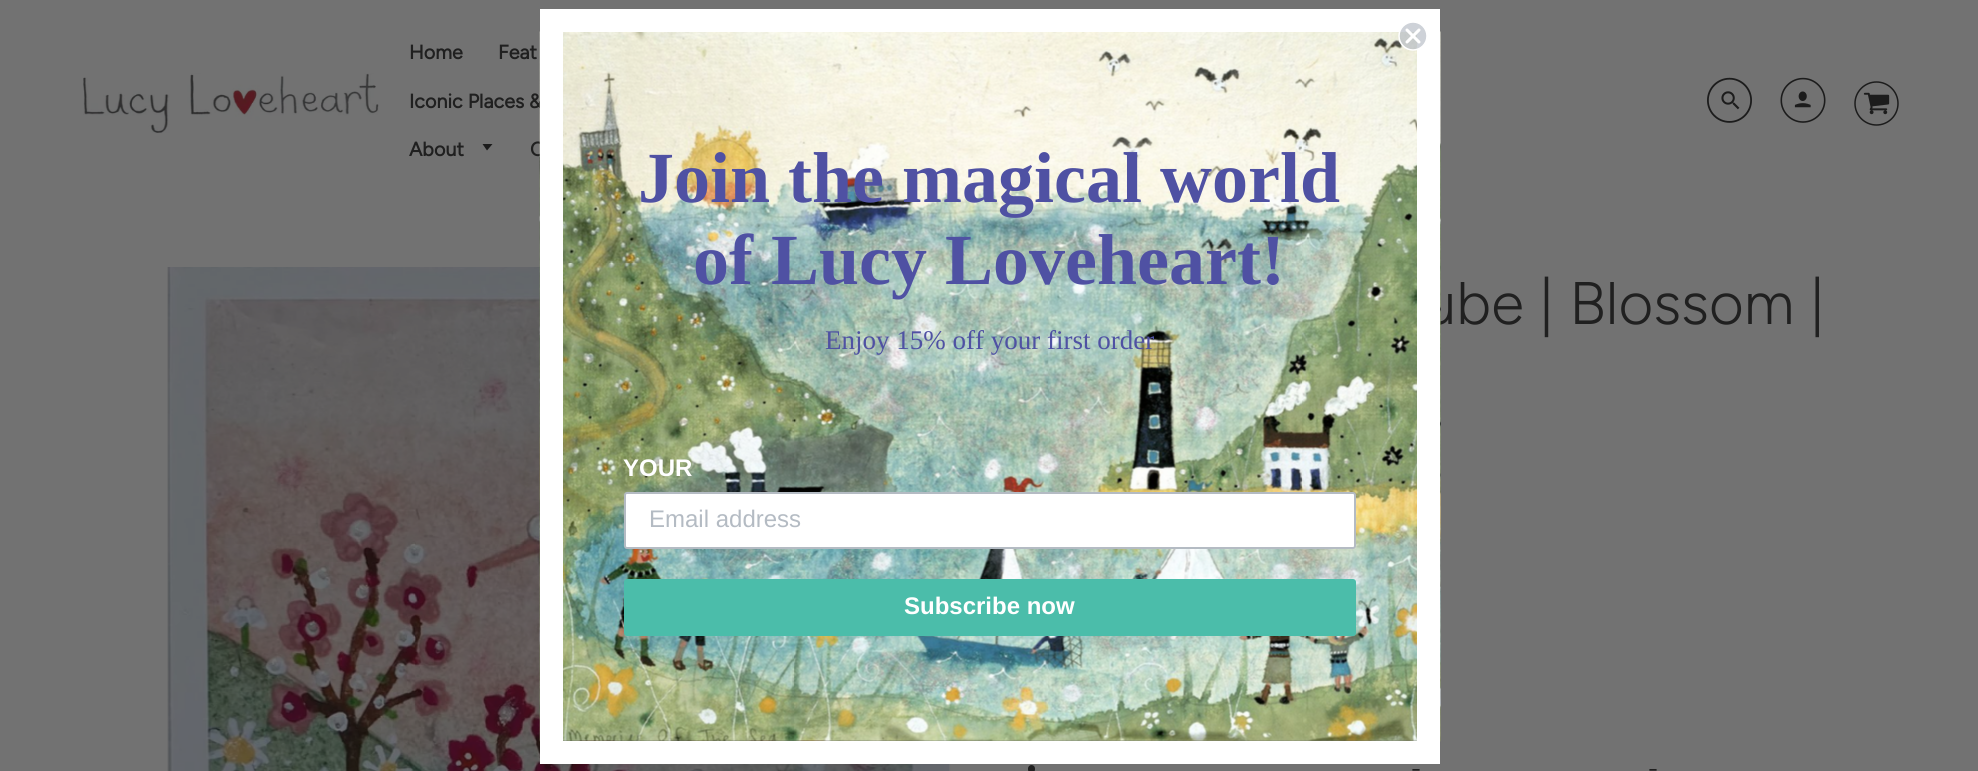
import math
import cairocffi as cairo

surface = cairo.ImageSurface(cairo.FORMAT_RGB24, 1978, 771)
cr = cairo.Context(surface)
options = cairo.FontOptions()
options.set_hint_metrics(cairo.HINT_METRICS_OFF)
options.set_hint_style(cairo.HINT_STYLE_NONE)
cr.set_font_options(options)
cr.set_miter_limit(4)


def use_color(code):
    cr.set_source_rgb(*(v / 255 for v in bytes.fromhex(code[-6:])))


def round_rect(x, y, w, h, r):
    cr.new_sub_path()
    for i, (u, v) in enumerate([(x + w - r, y + h - r), (x + r, y + h - r), (x + r, y + r), (x + w - r, y + r)]):
        cr.arc(u, v, r, i * math.pi / 2, (i + 1) * math.pi / 2)
    cr.close_path()


def picture(path, x, y, w, h):
    cr.save()
    cr.set_source_surface(cairo.ImageSurface.create_from_png(path), x, y)
    cr.rectangle(x, y, w, h)
    cr.fill()
    cr.restore()


use_color("#727272")
cr.paint()
picture("img1.png", 83, 73, 296, 61)
cr.select_font_face("Figtree", cairo.FONT_SLANT_NORMAL, cairo.FONT_WEIGHT_BOLD)
cr.set_font_size(19.75)
use_color("#202020")
cr.move_to(409, 59)
cr.show_text("Home")
cr.move_to(498, 59)
cr.show_text("Feat")
cr.move_to(409, 108)
cr.show_text("Iconic Places &")
cr.move_to(409, 156)
cr.show_text("About")
use_color("#1c1c1c")
cr.new_path()
cr.move_to(482.5, 144)
cr.line_to(487, 150.5)
cr.line_to(492.5, 144)
cr.close_path()
cr.fill()
use_color("#202020")
cr.move_to(530, 156)
cr.show_text("C")
picture("img2.png", 1707, 77, 45, 46)
picture("img3.png", 1780, 77, 46, 46)
picture("img4.png", 1854, 81, 45, 45)
picture("img6.png", 167, 267, 784, 504)
cr.select_font_face("Figtree Light")
cr.set_font_size(60)
cr.move_to(1423, 324)
cr.show_text("ube | Blossom |")
picture("img5.png", 539, 31, 902, 711)
cr.rectangle(551.5, 20.5, 877, 732)
use_color("#ffffff")
cr.set_line_width(23)
cr.stroke()
cr.set_source_rgba(0.706, 0.733, 0.765, 0.65)
cr.arc(1413, 36, 14, 0, 2 * math.pi)
cr.fill_preserve()
use_color("#ffffff")
cr.set_line_width(1.5)
cr.stroke()
cr.new_path()
cr.move_to(1407, 30)
cr.line_to(1419, 42)
cr.move_to(1407, 42)
cr.line_to(1419, 30)
cr.close_path()
cr.set_line_width(3)
cr.set_line_cap(cairo.LINE_CAP_ROUND)
cr.set_line_join(cairo.LINE_JOIN_ROUND)
cr.stroke()
cr.select_font_face("Liberation Serif", cairo.FONT_SLANT_NORMAL, cairo.FONT_WEIGHT_BOLD)
cr.set_font_size(72)
use_color("#4f51a3")
cr.move_to(638, 202)
cr.show_text("Join the magical world")
cr.move_to(693, 284)
cr.show_text("of Lucy Loveheart!")
cr.select_font_face("Liberation Serif")
cr.set_font_size(27)
cr.move_to(825, 349)
cr.show_text("Enjoy 15% off your first order")
cr.select_font_face("Liberation Sans", cairo.FONT_SLANT_NORMAL, cairo.FONT_WEIGHT_BOLD)
cr.set_font_size(24)
use_color("#ffffff")
cr.move_to(623, 476)
cr.show_text("YOUR")
round_rect(625, 493, 730, 55, 2)
cr.fill_preserve()
use_color("#b4bbc3")
cr.set_line_width(2)
cr.set_line_cap(cairo.LINE_CAP_BUTT)
cr.set_line_join(cairo.LINE_JOIN_MITER)
cr.stroke()
cr.select_font_face("Liberation Sans")
cr.move_to(649, 527)
cr.show_text("Email address")
use_color("#4bbdaa")
round_rect(624, 579, 732, 57, 3)
cr.fill()
cr.select_font_face("Liberation Sans", cairo.FONT_SLANT_NORMAL, cairo.FONT_WEIGHT_BOLD)
use_color("#ffffff")
cr.move_to(904, 614)
cr.show_text("Subscribe now")
use_color("#202020")
round_rect(1028, 765, 7, 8, 3.5)
cr.fill()
cr.select_font_face("Figtree")
cr.move_to(1411, 777)
cr.show_text("-")
cr.move_to(1648, 777)
cr.show_text("-")
surface.write_to_png("result.png")
